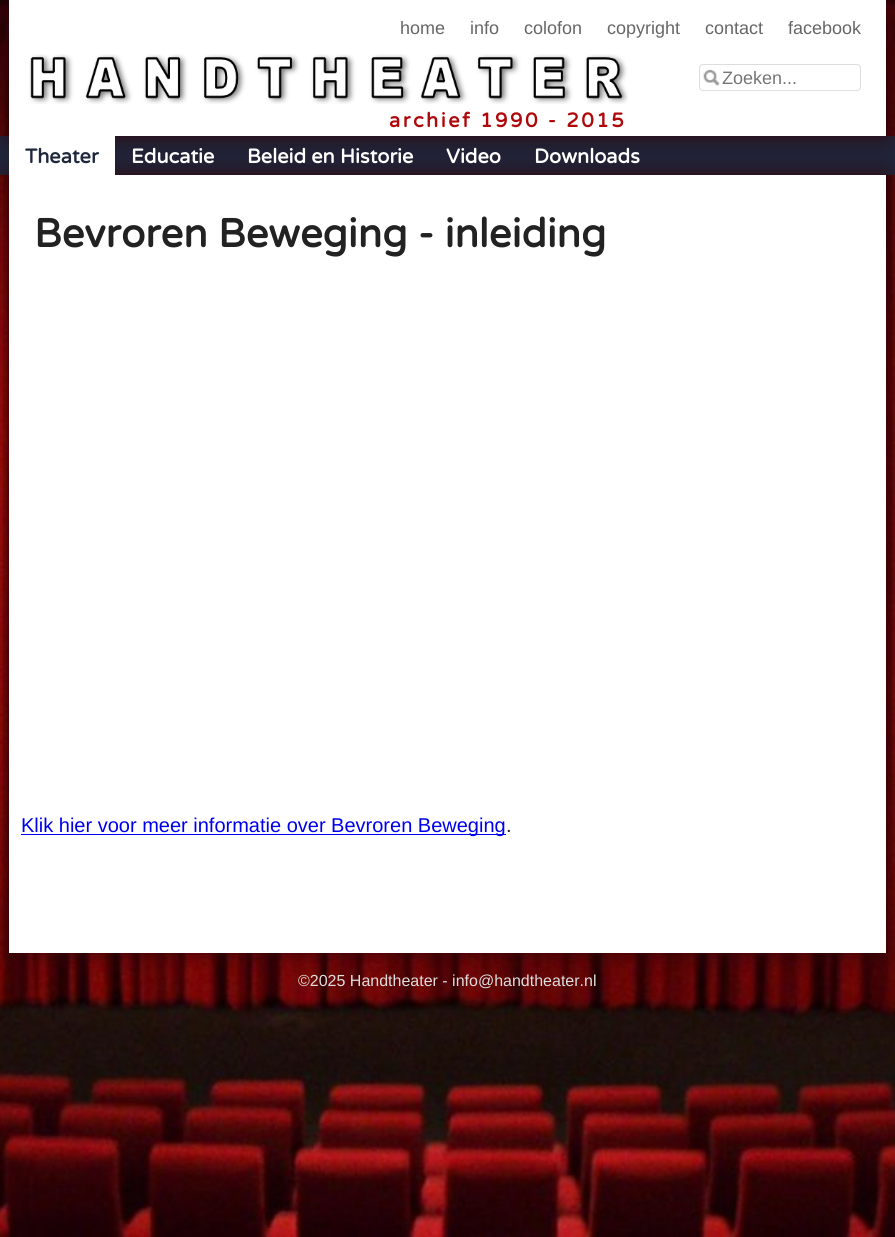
import math
import cairocffi as cairo

surface = cairo.ImageSurface(cairo.FORMAT_RGB24, 895, 1237)
cr = cairo.Context(surface)
options = cairo.FontOptions()
options.set_hint_metrics(cairo.HINT_METRICS_OFF)
options.set_hint_style(cairo.HINT_STYLE_NONE)
cr.set_font_options(options)
cr.set_miter_limit(4)


def use_color(code):
    cr.set_source_rgb(*(v / 255 for v in bytes.fromhex(code[-6:])))


def spaced_text(x, y, s, letter, word):
    cr.move_to(x, y)
    for ch in s:
        cr.show_text(ch)
        cr.rel_move_to(letter + word * (ch == ' '), 0)


def round_rect(x, y, w, h, r):
    cr.new_sub_path()
    for i, (u, v) in enumerate([(x + w - r, y + h - r), (x + r, y + h - r), (x + r, y + r), (x + w - r, y + r)]):
        cr.arc(u, v, r, i * math.pi / 2, (i + 1) * math.pi / 2)
    cr.close_path()


def shadow(x, y, w, h, r, blur, alpha):
    cr.push_group_with_content(cairo.CONTENT_ALPHA)
    cr.set_operator(cairo.OPERATOR_SOURCE)
    for i in range(15, -16, -2):
        e = blur * i / 6
        if min(w, h) + 2 * e > 0:
            cr.set_source_rgba(0, 0, 0, alpha * math.erfc((i - 1) / 8.5) / 2)
            round_rect(x - e, y - e, w + 2 * e, h + 2 * e, max(0, min(r + e + blur * .6, min(w, h) / 2 + e)))
            cr.fill()
    cr.mask(cr.pop_group())


def picture(path, x, y, w, h):
    cr.save()
    cr.set_source_surface(cairo.ImageSurface.create_from_png(path), x, y)
    cr.rectangle(x, y, w, h)
    cr.fill()
    cr.restore()


use_color("#ffffff")
cr.paint()
picture("img1.png", 0, 0, 895, 1237)
use_color("#1f273c")
cr.rectangle(0, 136, 895, 39)
cr.fill()
use_color("#310208")
shadow(9, 0, 877, 136, 0, 12.5, 1)
use_color("#ffffff")
cr.rectangle(9, 0, 877, 136)
cr.fill()
cr.select_font_face("Liberation Sans")
cr.set_font_size(18)
use_color("#666666")
cr.move_to(400, 34)
cr.show_text("home")
cr.move_to(470, 34)
cr.show_text("info")
cr.move_to(524, 34)
cr.show_text("colofon")
cr.move_to(607, 34)
cr.show_text("copyright")
cr.move_to(705, 34)
cr.show_text("contact")
cr.move_to(788, 34)
cr.show_text("facebook")
picture("img2.png", 703, 69, 17, 17)
round_rect(699.5, 64.5, 161, 26, 3.5)
use_color("#dddddd")
cr.set_line_width(1)
cr.stroke()
use_color("#757575")
cr.move_to(722, 84)
cr.show_text("Zoeken...")
use_color("#310208")
shadow(9, 175, 877, 778, 0, 12.5, 1)
use_color("#ffffff")
cr.rectangle(9, 136, 106, 39)
cr.fill()
cr.select_font_face("Varela Round", cairo.FONT_SLANT_NORMAL, cairo.FONT_WEIGHT_BOLD)
cr.set_font_size(20)
use_color("#1f273c")
cr.move_to(25, 163)
cr.show_text("Theater")
use_color("#ffffff")
cr.move_to(131, 163)
cr.show_text("Educatie")
cr.move_to(247, 163)
cr.show_text("Beleid en Historie")
cr.move_to(446, 163)
cr.show_text("Video")
cr.move_to(534, 163)
cr.show_text("Downloads")
picture("img3.png", 29, 54, 599, 50)
use_color("#ae080b")
spaced_text(389, 127, "archief 1990 - 2015", 2.5, 0)
use_color("#ffffff")
cr.rectangle(9, 175, 877, 778)
cr.fill()
cr.set_font_size(40)
use_color("#222222")
cr.move_to(34, 247)
cr.show_text("Bevroren Beweging - inleiding")
use_color("#0000ee")
cr.rectangle(21, 834, 485, 1)
cr.fill()
cr.select_font_face("Liberation Sans")
cr.set_font_size(20)
cr.move_to(21, 832)
cr.show_text("Klik hier voor meer informatie over Bevroren Beweging")
use_color("#222222")
cr.move_to(506, 832)
cr.show_text(".")
cr.set_font_size(16)
use_color("#dddddd")
cr.move_to(298, 986)
cr.show_text("©2025 Handtheater - info@handtheater.nl")
surface.write_to_png("result.png")
